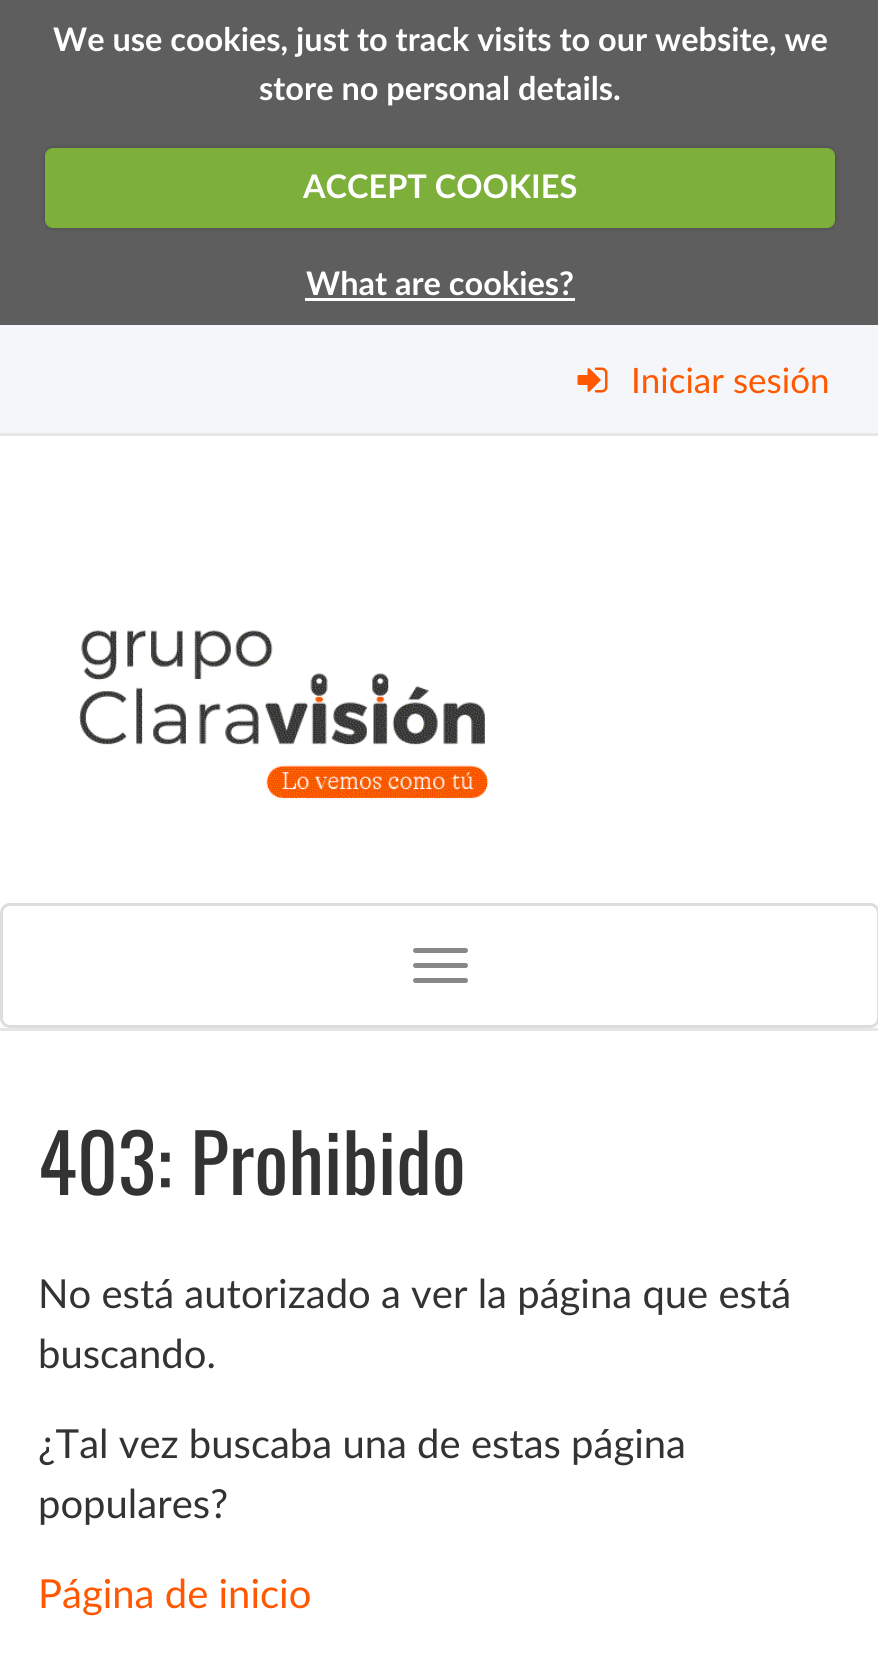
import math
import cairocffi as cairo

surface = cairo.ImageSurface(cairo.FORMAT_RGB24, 878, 1654)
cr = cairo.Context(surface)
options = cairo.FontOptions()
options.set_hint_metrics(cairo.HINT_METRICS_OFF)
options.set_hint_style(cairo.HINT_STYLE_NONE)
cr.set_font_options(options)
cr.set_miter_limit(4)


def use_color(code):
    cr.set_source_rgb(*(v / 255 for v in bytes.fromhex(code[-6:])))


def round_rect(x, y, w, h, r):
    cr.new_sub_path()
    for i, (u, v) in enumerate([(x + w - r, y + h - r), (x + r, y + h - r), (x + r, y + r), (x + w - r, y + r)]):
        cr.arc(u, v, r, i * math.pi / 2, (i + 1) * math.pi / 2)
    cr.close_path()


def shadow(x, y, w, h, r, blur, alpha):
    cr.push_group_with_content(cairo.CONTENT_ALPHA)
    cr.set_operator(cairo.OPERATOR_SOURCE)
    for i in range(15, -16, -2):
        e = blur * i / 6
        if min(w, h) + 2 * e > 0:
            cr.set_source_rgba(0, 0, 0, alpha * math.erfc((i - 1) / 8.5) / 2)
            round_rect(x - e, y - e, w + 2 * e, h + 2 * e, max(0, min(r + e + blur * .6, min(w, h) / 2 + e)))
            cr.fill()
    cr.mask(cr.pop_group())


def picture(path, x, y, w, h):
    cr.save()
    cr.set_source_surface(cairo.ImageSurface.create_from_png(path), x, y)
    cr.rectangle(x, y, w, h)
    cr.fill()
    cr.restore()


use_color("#ffffff")
cr.paint()
use_color("#5e5e5e")
cr.rectangle(0, 0, 878, 325)
cr.fill()
cr.select_font_face("Lato", cairo.FONT_SLANT_NORMAL, cairo.FONT_WEIGHT_BOLD)
cr.set_font_size(32.5)
use_color("#ffffff")
cr.move_to(53, 51)
cr.show_text("We use cookies, just to track visits to our website, we")
cr.move_to(259, 100)
cr.show_text("store no personal details.")
use_color("#000000")
shadow(45, 148, 790, 80, 8, 2.5, 0.25)
use_color("#7daf3b")
round_rect(45, 148, 790, 80, 8)
cr.fill()
use_color("#ffffff")
cr.move_to(303, 198)
cr.show_text("ACCEPT COOKIES")
cr.move_to(306, 295)
cr.show_text("What are cookies?")
cr.rectangle(305, 298, 270, 3)
cr.fill()
use_color("#f5f6fa")
cr.rectangle(0, 325, 878, 108)
cr.fill()
use_color("#e6e6e6")
cr.rectangle(0, 433, 878, 3)
cr.fill()
picture("img1.png", 577, 367, 31, 26)
cr.select_font_face("Lato")
cr.set_font_size(35)
use_color("#ff5800")
cr.move_to(631, 393)
cr.show_text("Iniciar sesión")
picture("img2.png", 79, 630, 410, 169)
use_color("#e6e6e6")
cr.rectangle(0, 1028, 878, 3)
cr.fill()
round_rect(1.5, 904.5, 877, 122, 8.5)
use_color("#dddddd")
cr.set_line_width(3)
cr.stroke()
use_color("#888888")
round_rect(413, 948, 55, 5, 2.5)
cr.fill()
round_rect(413, 963, 55, 5, 2.5)
cr.fill()
round_rect(413, 978, 55, 5, 2.5)
cr.fill()
cr.select_font_face("Oswald")
cr.set_font_size(80)
use_color("#333333")
cr.move_to(38, 1195)
cr.show_text("403: Prohibido")
cr.select_font_face("Lato")
cr.set_font_size(40)
cr.move_to(38, 1308)
cr.show_text("No está autorizado a ver la página que está")
cr.move_to(38, 1368)
cr.show_text("buscando.")
cr.move_to(38, 1458)
cr.show_text("¿Tal vez buscaba una de estas página")
cr.move_to(38, 1518)
cr.show_text("populares?")
use_color("#ff5800")
cr.move_to(38, 1608)
cr.show_text("Página de inicio")
surface.write_to_png("result.png")
